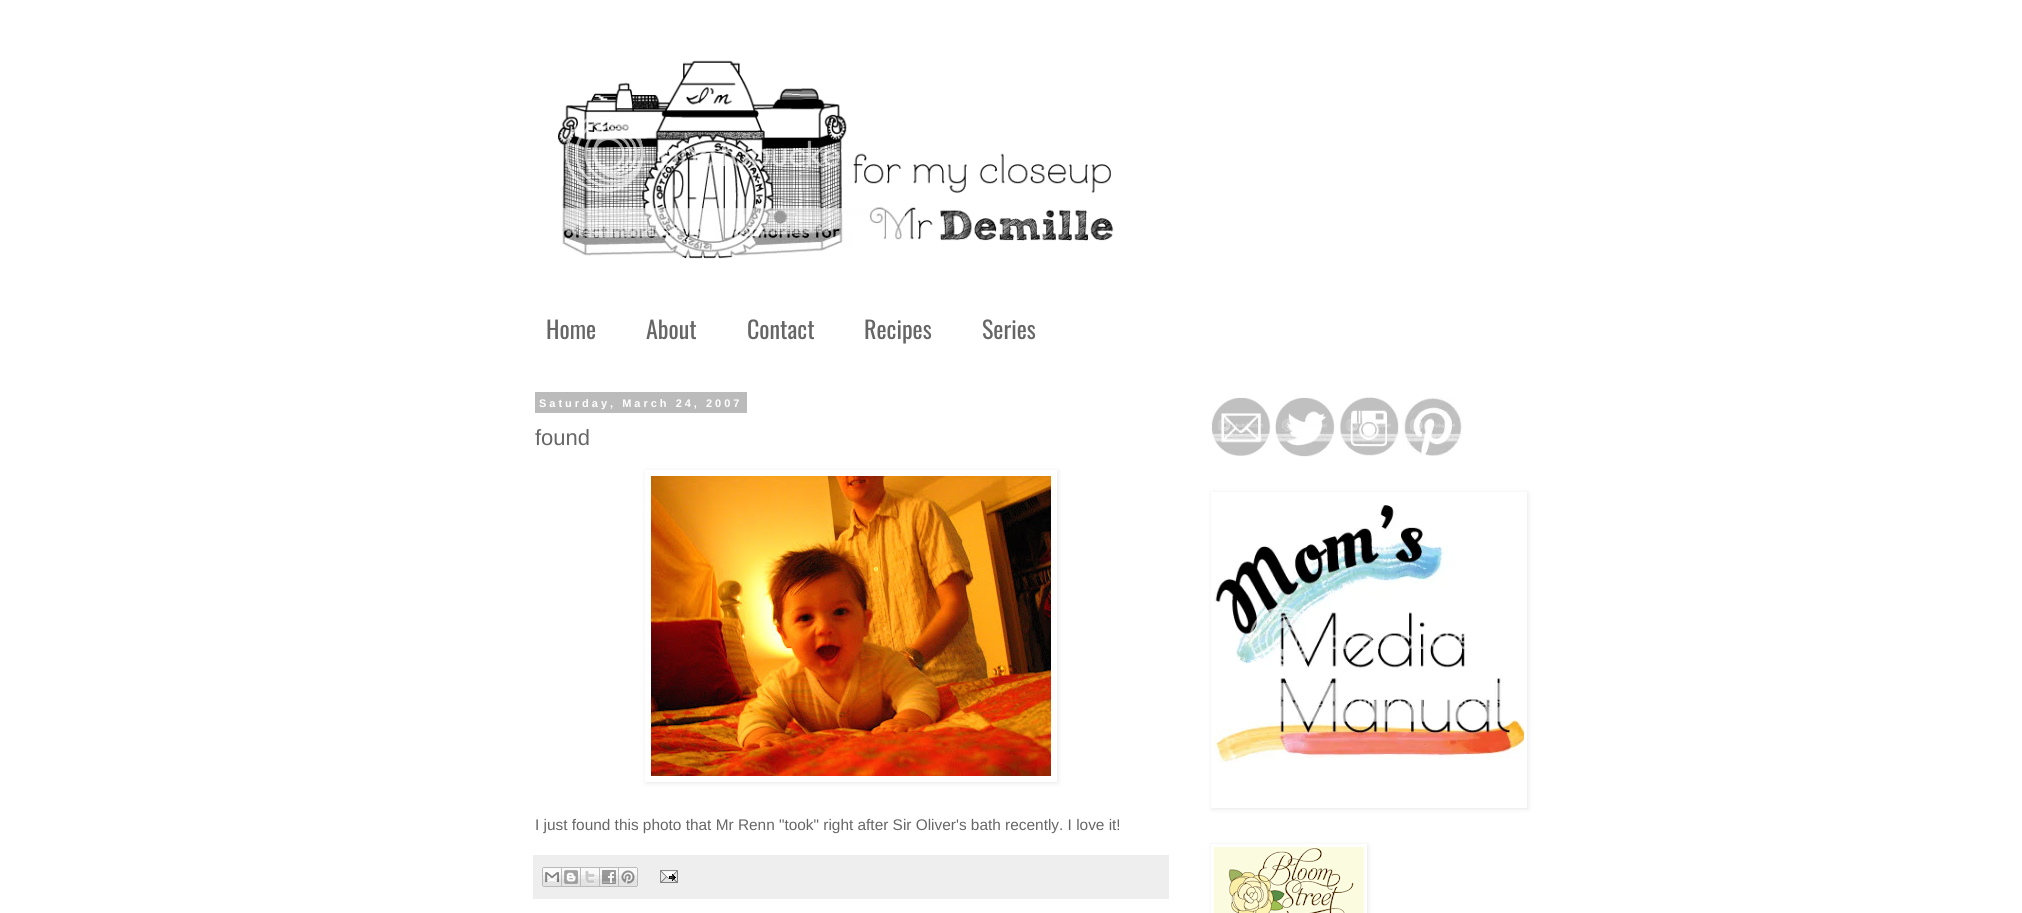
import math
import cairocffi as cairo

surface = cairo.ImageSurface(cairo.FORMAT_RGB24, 2022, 913)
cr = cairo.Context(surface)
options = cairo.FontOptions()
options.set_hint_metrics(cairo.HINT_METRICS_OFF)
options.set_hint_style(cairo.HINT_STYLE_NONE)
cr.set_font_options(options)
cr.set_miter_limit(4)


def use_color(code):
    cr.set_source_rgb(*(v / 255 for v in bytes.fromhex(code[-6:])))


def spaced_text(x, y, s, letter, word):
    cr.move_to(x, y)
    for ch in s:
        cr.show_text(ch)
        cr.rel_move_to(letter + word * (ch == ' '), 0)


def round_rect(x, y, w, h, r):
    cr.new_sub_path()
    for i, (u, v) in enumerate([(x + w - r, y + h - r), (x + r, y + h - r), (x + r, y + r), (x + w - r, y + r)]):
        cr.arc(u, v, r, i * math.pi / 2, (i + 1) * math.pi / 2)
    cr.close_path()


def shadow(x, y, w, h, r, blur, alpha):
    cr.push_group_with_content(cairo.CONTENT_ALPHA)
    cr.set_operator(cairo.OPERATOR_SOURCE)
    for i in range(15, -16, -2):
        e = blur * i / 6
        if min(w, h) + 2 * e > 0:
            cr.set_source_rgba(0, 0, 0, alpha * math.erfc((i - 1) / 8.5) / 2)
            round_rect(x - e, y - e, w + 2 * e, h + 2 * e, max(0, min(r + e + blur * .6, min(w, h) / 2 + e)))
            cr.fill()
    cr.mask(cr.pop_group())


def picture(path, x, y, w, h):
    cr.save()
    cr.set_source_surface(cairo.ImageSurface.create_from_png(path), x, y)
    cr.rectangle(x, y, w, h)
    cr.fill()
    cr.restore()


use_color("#ffffff")
cr.paint()
picture("img1.png", 557, 60, 557, 199)
cr.select_font_face("Oswald")
cr.set_font_size(24)
use_color("#666666")
cr.move_to(546, 339)
cr.show_text("Home")
cr.move_to(646, 339)
cr.show_text("About")
cr.move_to(747, 339)
cr.show_text("Contact")
cr.move_to(864, 339)
cr.show_text("Recipes")
cr.move_to(982, 339)
cr.show_text("Series")
use_color("#bbbbbb")
cr.rectangle(535, 392, 212, 21)
cr.fill()
cr.select_font_face("Liberation Sans", cairo.FONT_SLANT_NORMAL, cairo.FONT_WEIGHT_BOLD)
cr.set_font_size(11)
use_color("#ffffff")
spaced_text(539, 407, "Saturday, March 24, 2007", 3, 0)
cr.select_font_face("Liberation Sans")
cr.set_font_size(22)
use_color("#666666")
cr.move_to(535, 445)
cr.show_text("found")
cr.save()
cr.set_fill_rule(cairo.FILL_RULE_EVEN_ODD)
cr.new_path()
cr.move_to(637, 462)
cr.line_to(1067, 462)
cr.line_to(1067, 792)
cr.line_to(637, 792)
cr.close_path()
cr.move_to(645, 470)
cr.line_to(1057, 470)
cr.line_to(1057, 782)
cr.line_to(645, 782)
cr.close_path()
cr.clip()
use_color("#000000")
shadow(646, 471, 412, 312, 0, 2.5, 0.1)
cr.restore()
picture("img2.png", 651, 476, 400, 300)
cr.set_font_size(15.4)
cr.move_to(535, 830)
cr.show_text("I just found this photo that Mr Renn \"took\" right after Sir Oliver's bath recently. I love it!")
use_color("#eeeeee")
cr.rectangle(533, 855, 636, 44)
cr.fill()
picture("img3.png", 542, 867, 20, 20)
picture("img4.png", 562, 867, 19, 20)
picture("img5.png", 581, 867, 19, 20)
picture("img6.png", 600, 867, 19, 20)
picture("img7.png", 619, 867, 19, 20)
picture("img8.png", 660, 870, 18, 13)
picture("img9.png", 1211, 397, 60, 59)
picture("img10.png", 1275, 397, 60, 60)
picture("img11.png", 1340, 397, 59, 59)
picture("img12.png", 1403, 397, 59, 59)
cr.save()
cr.set_fill_rule(cairo.FILL_RULE_EVEN_ODD)
cr.new_path()
cr.move_to(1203, 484)
cr.line_to(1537, 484)
cr.line_to(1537, 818)
cr.line_to(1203, 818)
cr.close_path()
cr.move_to(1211, 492)
cr.line_to(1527, 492)
cr.line_to(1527, 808)
cr.line_to(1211, 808)
cr.close_path()
cr.clip()
use_color("#000000")
shadow(1212, 493, 316, 316, 0, 2.5, 0.1)
cr.restore()
picture("img13.png", 1214, 505, 310, 258)
cr.save()
cr.set_fill_rule(cairo.FILL_RULE_EVEN_ODD)
cr.new_path()
cr.move_to(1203, 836)
cr.line_to(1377, 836)
cr.line_to(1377, 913)
cr.line_to(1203, 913)
cr.close_path()
cr.move_to(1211, 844)
cr.line_to(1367, 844)
cr.line_to(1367, 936)
cr.line_to(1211, 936)
cr.close_path()
cr.clip()
use_color("#000000")
shadow(1212, 845, 156, 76, 0, 2.5, 0.1)
cr.restore()
picture("img14.png", 1214, 847, 150, 66)
surface.write_to_png("result.png")
